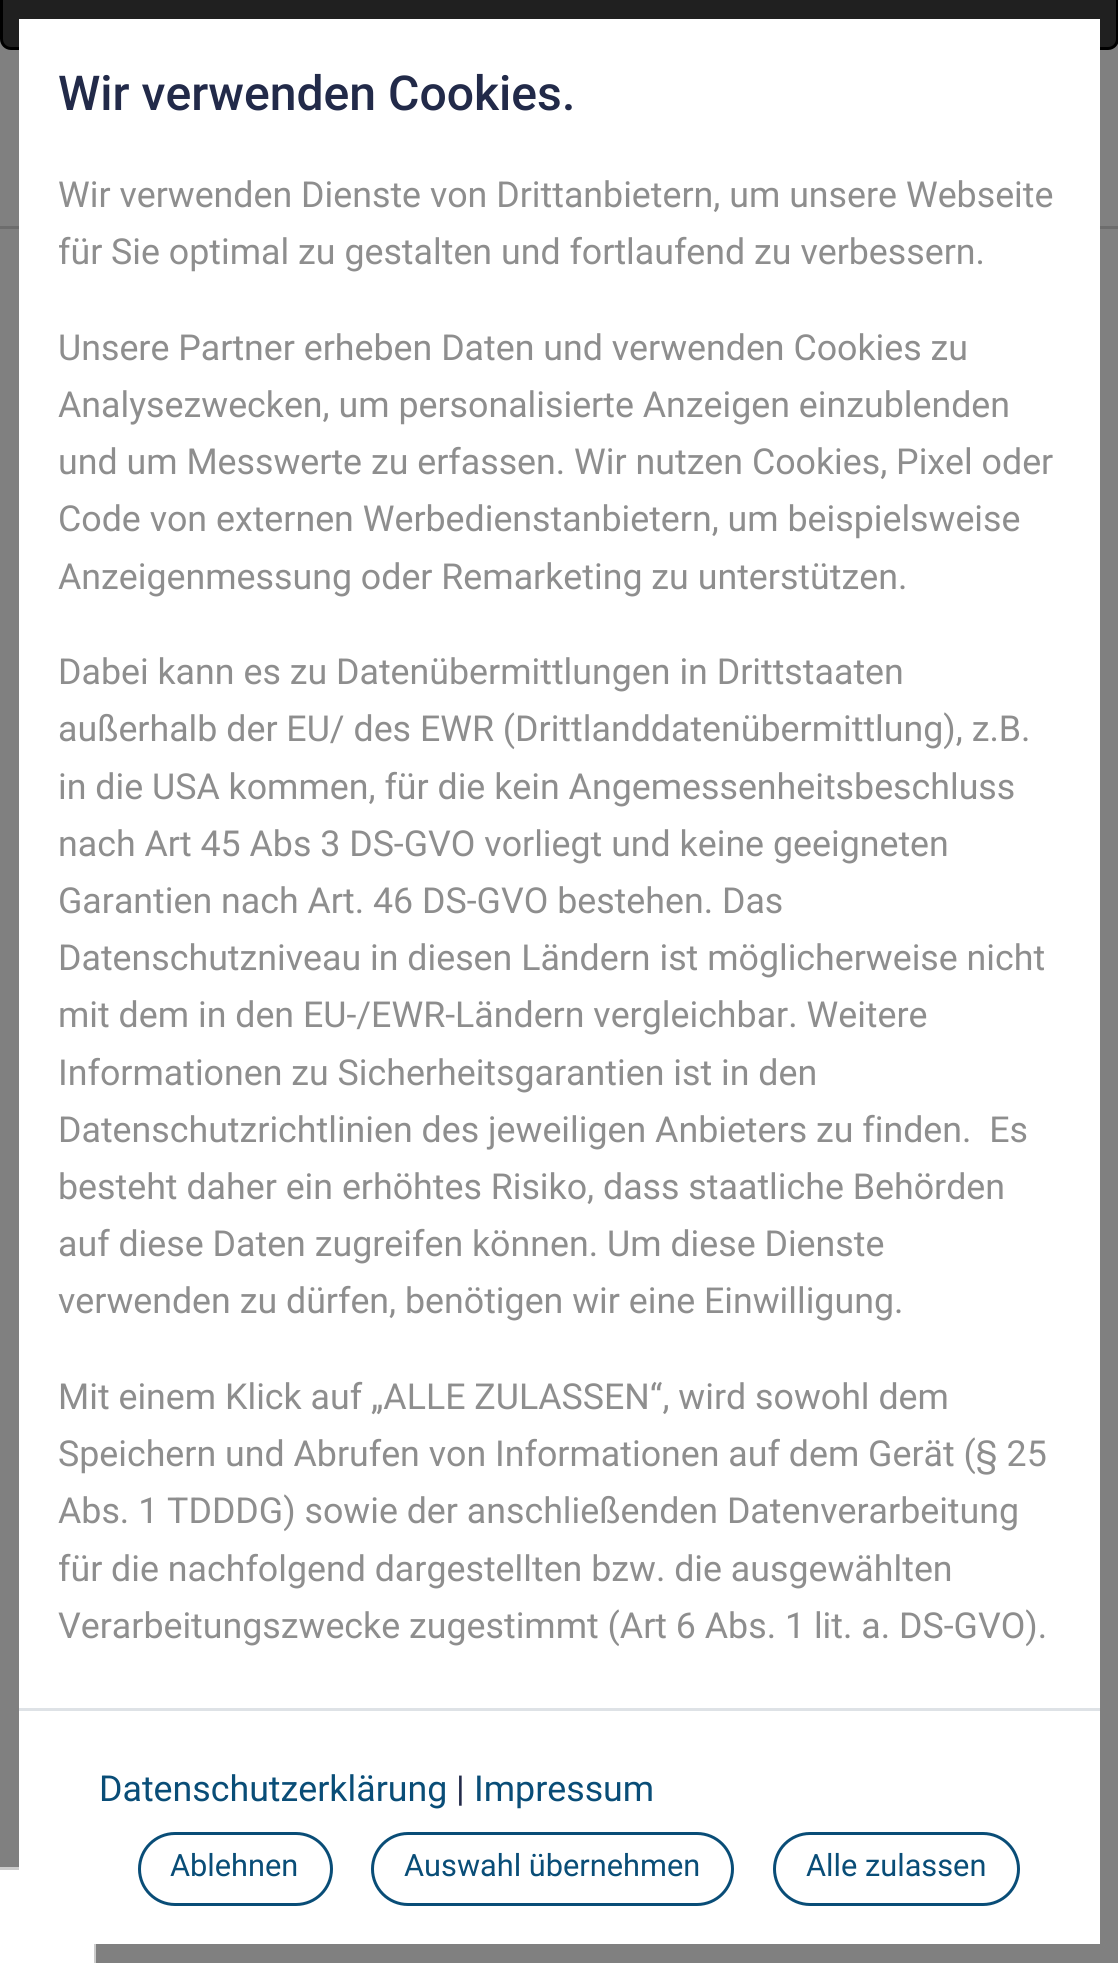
import math
import cairocffi as cairo

surface = cairo.ImageSurface(cairo.FORMAT_RGB24, 1118, 1963)
cr = cairo.Context(surface)
options = cairo.FontOptions()
options.set_hint_metrics(cairo.HINT_METRICS_OFF)
options.set_hint_style(cairo.HINT_STYLE_NONE)
cr.set_font_options(options)
cr.set_miter_limit(4)


def use_color(code):
    cr.set_source_rgb(*(v / 255 for v in bytes.fromhex(code[-6:])))


def round_rect(x, y, w, h, r):
    cr.new_sub_path()
    for i, (u, v) in enumerate([(x + w - r, y + h - r), (x + r, y + h - r), (x + r, y + r), (x + w - r, y + r)]):
        cr.arc(u, v, r, i * math.pi / 2, (i + 1) * math.pi / 2)
    cr.close_path()


use_color("#808080")
cr.paint()
use_color("#202020")
round_rect(1.5, -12.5, 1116, 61, 9.5)
cr.fill_preserve()
use_color("#000000")
cr.set_line_width(3)
cr.stroke()
use_color("#6d6d6d")
cr.rectangle(0, 226, 1118, 3)
cr.fill()
use_color("#ffffff")
cr.rectangle(0, 1870, 94, 93)
cr.fill()
use_color("#cccccc")
cr.set_fill_rule(cairo.FILL_RULE_EVEN_ODD)
cr.new_path()
cr.move_to(0, 1867)
cr.line_to(85, 1867)
cr.curve_to(91, 1867, 96, 1872, 96, 1878)
cr.line_to(96, 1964)
cr.line_to(0, 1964)
cr.close_path()
cr.move_to(0, 1870)
cr.line_to(85, 1870)
cr.curve_to(90, 1870, 94, 1874, 94, 1878)
cr.line_to(94, 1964)
cr.line_to(0, 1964)
cr.close_path()
cr.fill()
use_color("#ffffff")
cr.rectangle(19, 19, 1081, 1925)
cr.fill()
cr.select_font_face("Roboto Medium")
cr.set_font_size(48.1)
use_color("#222a49")
cr.move_to(58, 110)
cr.show_text("Wir verwenden Cookies.")
cr.select_font_face("Roboto")
cr.set_font_size(35.75)
use_color("#8e8e8e")
cr.move_to(58, 207)
cr.show_text("Wir verwenden Dienste von Drittanbietern, um unsere Webseite")
cr.move_to(58, 264)
cr.show_text("für Sie optimal zu gestalten und fortlaufend zu verbessern.")
cr.move_to(58, 360)
cr.show_text("Unsere Partner erheben Daten und verwenden Cookies zu")
cr.move_to(58, 417)
cr.show_text("Analysezwecken, um personalisierte Anzeigen einzublenden")
cr.move_to(58, 474)
cr.show_text("und um Messwerte zu erfassen. Wir nutzen Cookies, Pixel oder")
cr.move_to(58, 531)
cr.show_text("Code von externen Werbedienstanbietern, um beispielsweise")
cr.move_to(58, 589)
cr.show_text("Anzeigenmessung oder Remarketing zu unterstützen.")
cr.move_to(58, 684)
cr.show_text("Dabei kann es zu Datenübermittlungen in Drittstaaten")
cr.move_to(58, 741)
cr.show_text("außerhalb der EU/ des EWR (Drittlanddatenübermittlung), z.B.")
cr.move_to(58, 799)
cr.show_text("in die USA kommen, für die kein Angemessenheitsbeschluss")
cr.move_to(58, 856)
cr.show_text("nach Art 45 Abs 3 DS-GVO vorliegt und keine geeigneten")
cr.move_to(58, 913)
cr.show_text("Garantien nach Art. 46 DS-GVO bestehen. Das")
cr.move_to(58, 970)
cr.show_text("Datenschutzniveau in diesen Ländern ist möglicherweise nicht")
cr.move_to(58, 1027)
cr.show_text("mit dem in den EU-/EWR-Ländern vergleichbar. Weitere")
cr.move_to(58, 1085)
cr.show_text("Informationen zu Sicherheitsgarantien ist in den")
cr.move_to(58, 1142)
cr.show_text("Datenschutzrichtlinien des jeweiligen Anbieters zu finden.  Es")
cr.move_to(58, 1199)
cr.show_text("besteht daher ein erhöhtes Risiko, dass staatliche Behörden")
cr.move_to(58, 1256)
cr.show_text("auf diese Daten zugreifen können. Um diese Dienste")
cr.move_to(58, 1313)
cr.show_text("verwenden zu dürfen, benötigen wir eine Einwilligung.")
cr.move_to(58, 1409)
cr.show_text("Mit einem Klick auf „ALLE ZULASSEN“, wird sowohl dem")
cr.move_to(58, 1466)
cr.show_text("Speichern und Abrufen von Informationen auf dem Gerät (§ 25")
cr.move_to(58, 1523)
cr.show_text("Abs. 1 TDDDG) sowie der anschließenden Datenverarbeitung")
cr.move_to(58, 1581)
cr.show_text("für die nachfolgend dargestellten bzw. die ausgewählten")
cr.move_to(58, 1638)
cr.show_text("Verarbeitungszwecke zugestimmt (Art 6 Abs. 1 lit. a. DS-GVO).")
use_color("#dee2e6")
cr.rectangle(19, 1708, 1081, 3)
cr.fill()
use_color("#094d77")
cr.move_to(99, 1801)
cr.show_text("Datenschutzerklärung")
use_color("#222a49")
cr.move_to(456, 1801)
cr.show_text("|")
use_color("#094d77")
cr.move_to(474, 1801)
cr.show_text("Impressum")
round_rect(139.5, 1833.5, 192, 71, 35.5)
cr.stroke()
cr.set_font_size(30.75)
cr.move_to(170, 1876)
cr.show_text("Ablehnen")
round_rect(372.5, 1833.5, 360, 71, 35.5)
cr.stroke()
cr.move_to(404, 1876)
cr.show_text("Auswahl übernehmen")
round_rect(774.5, 1833.5, 244, 71, 35.5)
cr.stroke()
cr.move_to(806, 1876)
cr.show_text("Alle zulassen")
surface.write_to_png("result.png")
